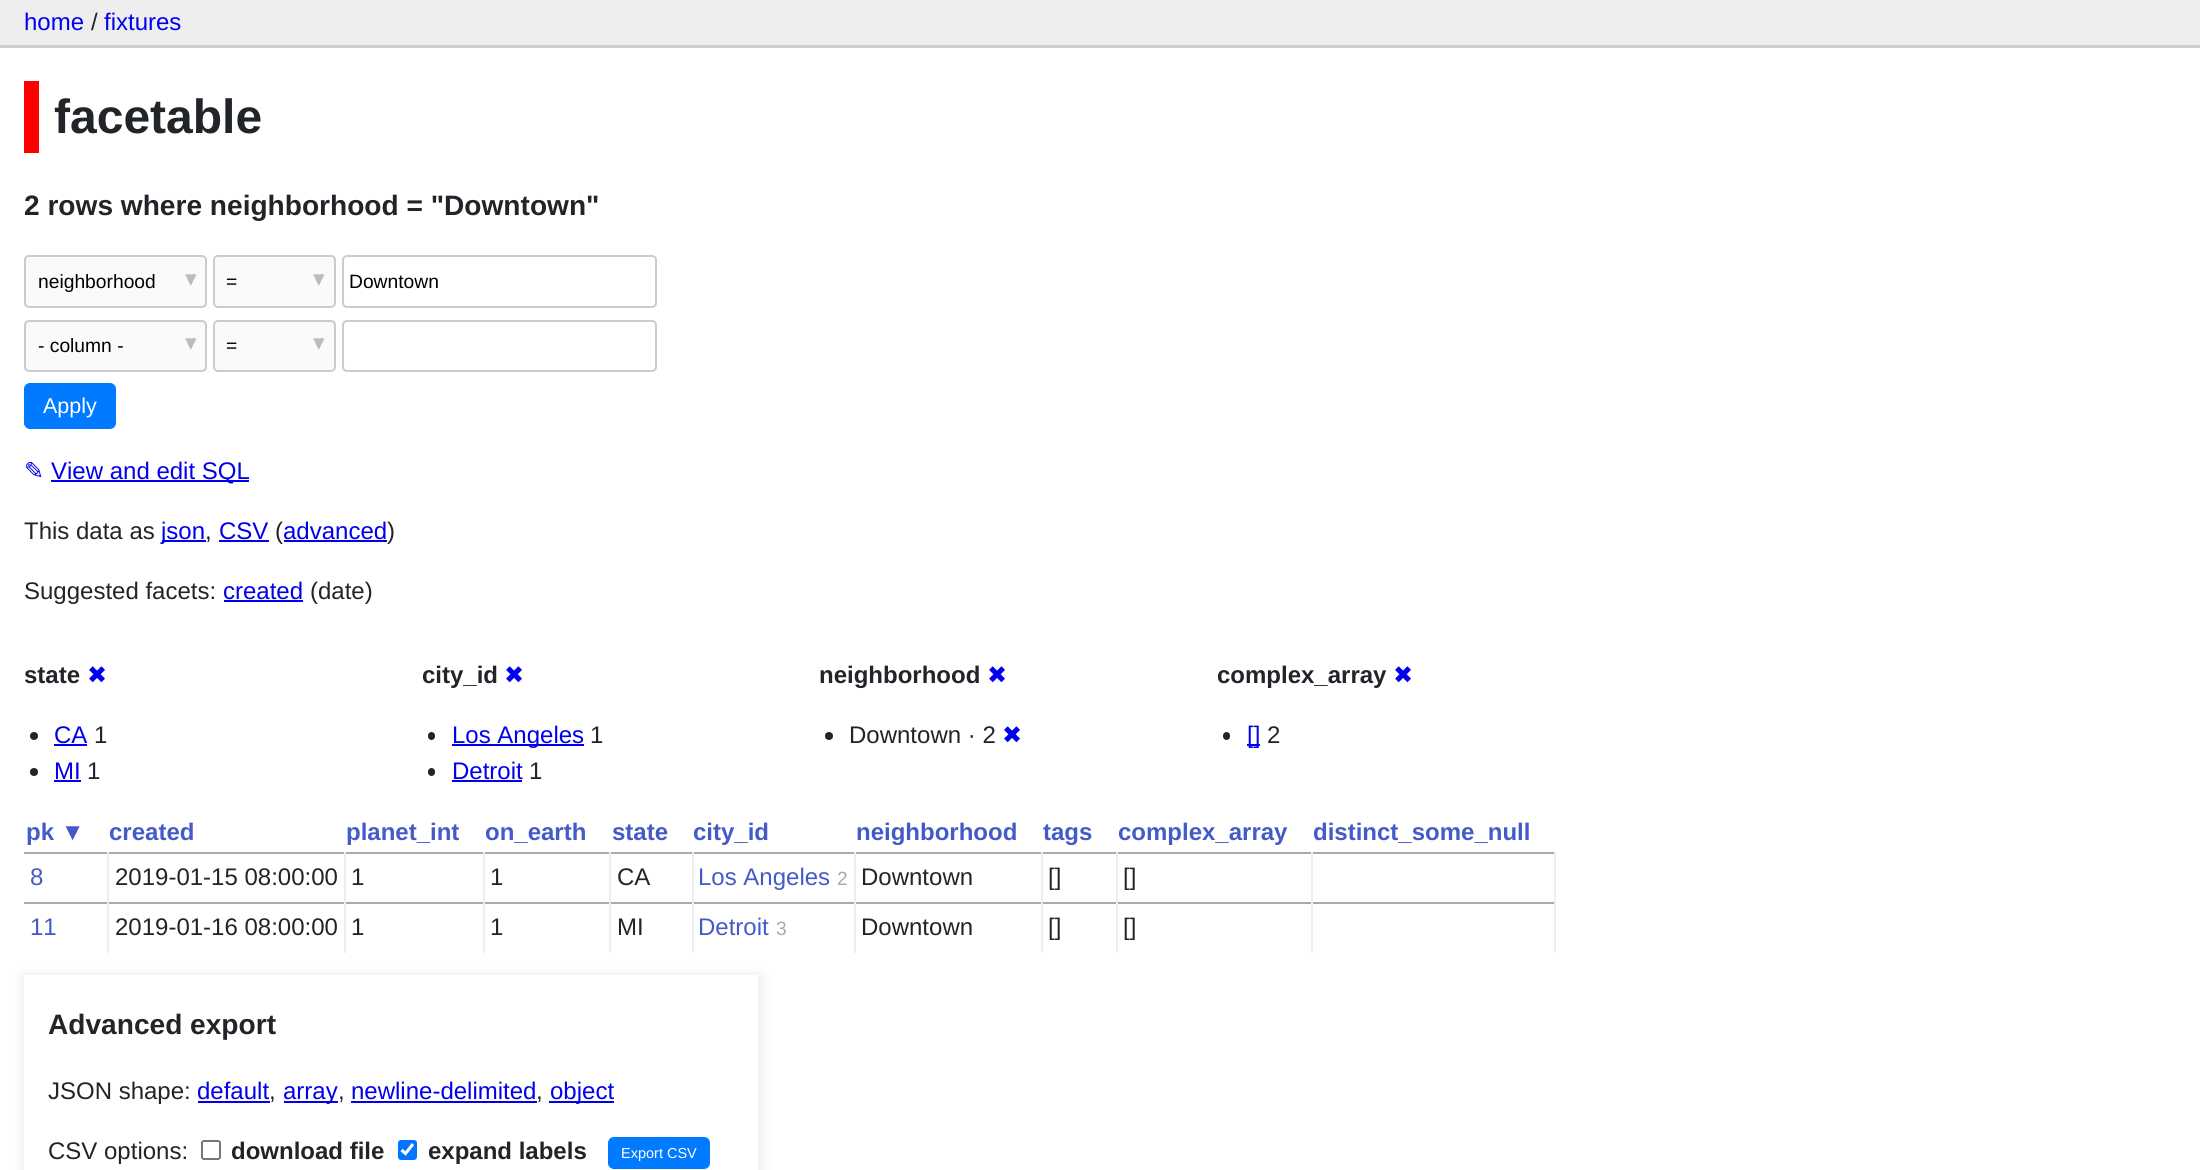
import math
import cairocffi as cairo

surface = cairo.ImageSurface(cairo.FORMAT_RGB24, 2200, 1170)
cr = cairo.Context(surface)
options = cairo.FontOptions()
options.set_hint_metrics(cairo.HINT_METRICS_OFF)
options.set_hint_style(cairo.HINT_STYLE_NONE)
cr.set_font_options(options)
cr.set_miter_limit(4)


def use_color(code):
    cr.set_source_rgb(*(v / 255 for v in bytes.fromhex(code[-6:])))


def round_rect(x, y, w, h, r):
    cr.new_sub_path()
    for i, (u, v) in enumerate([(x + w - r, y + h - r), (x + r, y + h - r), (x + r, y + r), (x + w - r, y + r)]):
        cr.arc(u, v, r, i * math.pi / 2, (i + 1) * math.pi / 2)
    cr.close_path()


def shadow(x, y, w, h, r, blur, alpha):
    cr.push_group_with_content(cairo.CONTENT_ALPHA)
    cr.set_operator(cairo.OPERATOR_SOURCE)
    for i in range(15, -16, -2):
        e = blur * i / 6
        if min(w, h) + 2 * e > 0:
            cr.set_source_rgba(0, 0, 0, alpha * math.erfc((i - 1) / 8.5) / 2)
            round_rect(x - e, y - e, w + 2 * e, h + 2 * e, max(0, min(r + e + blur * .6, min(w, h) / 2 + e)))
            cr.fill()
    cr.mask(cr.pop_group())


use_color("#ffffff")
cr.paint()
use_color("#eeeeee")
cr.rectangle(0, 0, 2200, 45)
cr.fill()
use_color("#cccccc")
cr.rectangle(0, 45, 2200, 3)
cr.fill()
cr.select_font_face("Liberation Sans")
cr.set_font_size(24)
use_color("#0000ee")
cr.move_to(24, 30)
cr.show_text("home")
use_color("#212529")
cr.move_to(91, 30)
cr.show_text("/")
use_color("#0000ee")
cr.move_to(104, 30)
cr.show_text("fixtures")
use_color("#ff0000")
cr.rectangle(24, 81, 15, 72)
cr.fill()
cr.select_font_face("Liberation Sans", cairo.FONT_SLANT_NORMAL, cairo.FONT_WEIGHT_BOLD)
cr.set_font_size(48)
use_color("#212529")
cr.move_to(54, 133)
cr.show_text("facetable")
cr.set_font_size(28.1)
cr.move_to(24, 215)
cr.show_text("2 rows where neighborhood = \"Downtown\"")
use_color("#fafafa")
round_rect(25, 256, 181, 51, 4)
cr.fill_preserve()
use_color("#cccccc")
cr.stroke()
cr.select_font_face("Liberation Sans")
cr.set_font_size(19.25)
use_color("#000000")
cr.move_to(38, 288)
cr.show_text("neighborhood")
cr.select_font_face("DejaVu Sans")
cr.set_font_size(23)
use_color("#bbbbbb")
cr.move_to(185, 286)
cr.show_text("▾")
use_color("#fafafa")
round_rect(214, 256, 121, 51, 4)
cr.fill_preserve()
use_color("#cccccc")
cr.stroke()
cr.select_font_face("Liberation Sans")
cr.set_font_size(19.25)
use_color("#000000")
cr.move_to(226, 288)
cr.show_text("=")
cr.select_font_face("DejaVu Sans")
cr.set_font_size(23)
use_color("#bbbbbb")
cr.move_to(313, 286)
cr.show_text("▾")
round_rect(343, 256, 313, 51, 4)
use_color("#cccccc")
cr.stroke()
cr.select_font_face("Liberation Sans")
cr.set_font_size(19.25)
use_color("#000000")
cr.move_to(349, 288)
cr.show_text("Downtown")
use_color("#fafafa")
round_rect(25, 321, 181, 50, 4)
cr.fill_preserve()
use_color("#cccccc")
cr.stroke()
use_color("#000000")
cr.move_to(38, 352)
cr.show_text("- column -")
cr.select_font_face("DejaVu Sans")
cr.set_font_size(23)
use_color("#bbbbbb")
cr.move_to(185, 350)
cr.show_text("▾")
use_color("#fafafa")
round_rect(214, 321, 121, 50, 4)
cr.fill_preserve()
use_color("#cccccc")
cr.stroke()
cr.select_font_face("Liberation Sans")
cr.set_font_size(19.25)
use_color("#000000")
cr.move_to(226, 352)
cr.show_text("=")
cr.select_font_face("DejaVu Sans")
cr.set_font_size(23)
use_color("#bbbbbb")
cr.move_to(313, 350)
cr.show_text("▾")
round_rect(343, 321, 313, 50, 4)
use_color("#cccccc")
cr.stroke()
use_color("#007bff")
round_rect(25, 384, 90, 44, 5)
cr.fill_preserve()
cr.stroke()
cr.select_font_face("Liberation Sans")
cr.set_font_size(21.5)
use_color("#ffffff")
cr.move_to(43, 413)
cr.show_text("Apply")
cr.select_font_face("DejaVu Sans")
cr.set_font_size(24)
use_color("#0000ee")
cr.move_to(24, 479)
cr.show_text("✎")
cr.rectangle(51, 480, 198, 2)
cr.fill()
cr.select_font_face("Liberation Sans")
cr.move_to(51, 479)
cr.show_text("View and edit SQL")
use_color("#212529")
cr.move_to(24, 539)
cr.show_text("This data as")
use_color("#0000ee")
cr.rectangle(162, 540, 44, 2)
cr.fill()
cr.move_to(161, 539)
cr.show_text("json")
use_color("#212529")
cr.move_to(205, 539)
cr.show_text(",")
use_color("#0000ee")
cr.move_to(219, 539)
cr.show_text("CSV")
cr.rectangle(219, 540, 50, 2)
cr.fill()
use_color("#212529")
cr.move_to(275, 539)
cr.show_text("(")
use_color("#0000ee")
cr.move_to(283, 539)
cr.show_text("advanced")
cr.rectangle(284, 540, 103, 2)
cr.fill()
use_color("#212529")
cr.move_to(387, 539)
cr.show_text(")")
cr.move_to(24, 599)
cr.show_text("Suggested facets:")
use_color("#0000ee")
cr.move_to(223, 599)
cr.show_text("created")
cr.rectangle(224, 600, 79, 2)
cr.fill()
use_color("#212529")
cr.move_to(310, 599)
cr.show_text("(date)")
cr.select_font_face("Liberation Sans", cairo.FONT_SLANT_NORMAL, cairo.FONT_WEIGHT_BOLD)
cr.move_to(24, 683)
cr.show_text("state")
cr.select_font_face("DejaVu Sans")
use_color("#0000ee")
cr.move_to(87, 683)
cr.show_text("✖")
use_color("#212529")
cr.new_path()
cr.arc(34, 736, 4, 0, 2 * math.pi)
cr.fill()
cr.select_font_face("Liberation Sans")
use_color("#0000ee")
cr.move_to(54, 743)
cr.show_text("CA")
cr.rectangle(54, 744, 33, 2)
cr.fill()
use_color("#212529")
cr.move_to(94, 743)
cr.show_text("1")
cr.new_path()
cr.arc(34, 772, 4, 0, 2 * math.pi)
cr.fill()
use_color("#0000ee")
cr.move_to(54, 779)
cr.show_text("MI")
cr.rectangle(54, 780, 27, 2)
cr.fill()
use_color("#212529")
cr.move_to(87, 779)
cr.show_text("1")
cr.select_font_face("Liberation Sans", cairo.FONT_SLANT_NORMAL, cairo.FONT_WEIGHT_BOLD)
cr.move_to(422, 683)
cr.show_text("city_id")
cr.select_font_face("DejaVu Sans")
use_color("#0000ee")
cr.move_to(504, 683)
cr.show_text("✖")
use_color("#212529")
round_rect(428, 732, 7, 8, 3.5)
cr.fill()
use_color("#0000ee")
cr.rectangle(452, 744, 132, 2)
cr.fill()
cr.select_font_face("Liberation Sans")
cr.move_to(452, 743)
cr.show_text("Los Angeles")
use_color("#212529")
cr.move_to(590, 743)
cr.show_text("1")
round_rect(428, 768, 7, 8, 3.5)
cr.fill()
use_color("#0000ee")
cr.move_to(452, 779)
cr.show_text("Detroit")
cr.rectangle(452, 780, 70, 2)
cr.fill()
use_color("#212529")
cr.move_to(529, 779)
cr.show_text("1")
cr.select_font_face("Liberation Sans", cairo.FONT_SLANT_NORMAL, cairo.FONT_WEIGHT_BOLD)
cr.move_to(819, 683)
cr.show_text("neighborhood")
cr.select_font_face("DejaVu Sans")
use_color("#0000ee")
cr.move_to(987, 683)
cr.show_text("✖")
use_color("#212529")
cr.new_path()
cr.arc(829, 736, 4, 0, 2 * math.pi)
cr.fill()
cr.select_font_face("Liberation Sans")
cr.move_to(849, 743)
cr.show_text("Downtown · 2")
cr.select_font_face("DejaVu Sans")
use_color("#0000ee")
cr.move_to(1002, 743)
cr.show_text("✖")
cr.select_font_face("Liberation Sans", cairo.FONT_SLANT_NORMAL, cairo.FONT_WEIGHT_BOLD)
use_color("#212529")
cr.move_to(1217, 683)
cr.show_text("complex_array")
cr.select_font_face("DejaVu Sans")
use_color("#0000ee")
cr.move_to(1393, 683)
cr.show_text("✖")
use_color("#212529")
round_rect(1223, 732, 7, 8, 3.5)
cr.fill()
use_color("#0000ee")
cr.rectangle(1247, 744, 13, 2)
cr.fill()
cr.select_font_face("Liberation Sans")
cr.move_to(1247, 743)
cr.show_text("[]")
use_color("#212529")
cr.move_to(1267, 743)
cr.show_text("2")
cr.select_font_face("Liberation Sans", cairo.FONT_SLANT_NORMAL, cairo.FONT_WEIGHT_BOLD)
use_color("#445ac8")
cr.move_to(26, 840)
cr.show_text("pk ▼")
cr.move_to(109, 840)
cr.show_text("created")
cr.move_to(346, 840)
cr.show_text("planet_int")
cr.move_to(485, 840)
cr.show_text("on_earth")
cr.move_to(612, 840)
cr.show_text("state")
cr.move_to(693, 840)
cr.show_text("city_id")
cr.move_to(856, 840)
cr.show_text("neighborhood")
cr.move_to(1043, 840)
cr.show_text("tags")
cr.move_to(1118, 840)
cr.show_text("complex_array")
cr.move_to(1313, 840)
cr.show_text("distinct_some_null")
use_color("#aaaaaa")
cr.rectangle(24, 852, 1532, 2)
cr.fill()
cr.rectangle(24, 902, 1532, 2)
cr.fill()
use_color("#eeeeee")
cr.rectangle(1554, 902, 2, 51)
cr.fill()
cr.rectangle(1554, 852, 2, 51)
cr.fill()
cr.rectangle(107, 902, 2, 51)
cr.fill()
cr.rectangle(107, 852, 2, 51)
cr.fill()
cr.select_font_face("Liberation Sans")
use_color("#445ac8")
cr.move_to(30, 885)
cr.show_text("8")
use_color("#eeeeee")
cr.rectangle(344, 902, 2, 51)
cr.fill()
cr.rectangle(344, 852, 2, 51)
cr.fill()
use_color("#212529")
cr.move_to(115, 885)
cr.show_text("2019-01-15 08:00:00")
use_color("#eeeeee")
cr.rectangle(483, 902, 2, 51)
cr.fill()
cr.rectangle(483, 852, 2, 51)
cr.fill()
use_color("#212529")
cr.move_to(351, 885)
cr.show_text("1")
use_color("#eeeeee")
cr.rectangle(609, 902, 2, 51)
cr.fill()
cr.rectangle(609, 852, 2, 51)
cr.fill()
use_color("#212529")
cr.move_to(490, 885)
cr.show_text("1")
use_color("#eeeeee")
cr.rectangle(692, 902, 2, 51)
cr.fill()
cr.rectangle(692, 852, 2, 51)
cr.fill()
use_color("#212529")
cr.move_to(617, 885)
cr.show_text("CA")
use_color("#eeeeee")
cr.rectangle(854, 902, 2, 51)
cr.fill()
cr.rectangle(854, 852, 2, 51)
cr.fill()
use_color("#445ac8")
cr.move_to(698, 885)
cr.show_text("Los Angeles")
cr.set_font_size(19.25)
use_color("#aaaaaa")
cr.move_to(837, 885)
cr.show_text("2")
use_color("#eeeeee")
cr.rectangle(1041, 902, 2, 51)
cr.fill()
cr.rectangle(1041, 852, 2, 51)
cr.fill()
cr.set_font_size(24)
use_color("#212529")
cr.move_to(861, 885)
cr.show_text("Downtown")
use_color("#eeeeee")
cr.rectangle(1116, 902, 2, 51)
cr.fill()
cr.rectangle(1116, 852, 2, 51)
cr.fill()
use_color("#212529")
cr.move_to(1048, 885)
cr.show_text("[]")
use_color("#eeeeee")
cr.rectangle(1311, 902, 2, 51)
cr.fill()
cr.rectangle(1311, 852, 2, 51)
cr.fill()
use_color("#212529")
cr.move_to(1123, 885)
cr.show_text("[]")
use_color("#445ac8")
cr.move_to(30, 935)
cr.show_text("11")
use_color("#212529")
cr.move_to(115, 935)
cr.show_text("2019-01-16 08:00:00")
cr.move_to(351, 935)
cr.show_text("1")
cr.move_to(490, 935)
cr.show_text("1")
cr.move_to(617, 935)
cr.show_text("MI")
use_color("#445ac8")
cr.move_to(698, 935)
cr.show_text("Detroit")
cr.set_font_size(19.25)
use_color("#aaaaaa")
cr.move_to(776, 935)
cr.show_text("3")
cr.set_font_size(24)
use_color("#212529")
cr.move_to(861, 935)
cr.show_text("Downtown")
cr.move_to(1048, 935)
cr.show_text("[]")
cr.move_to(1123, 935)
cr.show_text("[]")
cr.save()
cr.set_fill_rule(cairo.FILL_RULE_EVEN_ODD)
cr.new_path()
cr.move_to(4, 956)
cr.line_to(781, 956)
cr.line_to(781, 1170)
cr.line_to(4, 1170)
cr.close_path()
cr.move_to(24, 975)
cr.line_to(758, 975)
cr.line_to(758, 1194)
cr.line_to(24, 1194)
cr.close_path()
cr.clip()
use_color("#000000")
shadow(23, 975, 739, 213, 0, 6, 0.08)
cr.restore()
cr.select_font_face("Liberation Sans", cairo.FONT_SLANT_NORMAL, cairo.FONT_WEIGHT_BOLD)
cr.set_font_size(28.1)
cr.move_to(48, 1034)
cr.show_text("Advanced export")
cr.select_font_face("Liberation Sans")
cr.set_font_size(24)
cr.move_to(48, 1099)
cr.show_text("JSON shape:")
use_color("#0000ee")
cr.move_to(197, 1099)
cr.show_text("default")
cr.rectangle(198, 1101, 72, 2)
cr.fill()
use_color("#212529")
cr.move_to(269, 1099)
cr.show_text(",")
use_color("#0000ee")
cr.rectangle(284, 1101, 54, 2)
cr.fill()
cr.move_to(283, 1099)
cr.show_text("array")
use_color("#212529")
cr.move_to(338, 1099)
cr.show_text(",")
use_color("#0000ee")
cr.move_to(351, 1099)
cr.show_text("newline-delimited")
cr.rectangle(351, 1101, 186, 2)
cr.fill()
use_color("#212529")
cr.move_to(536, 1099)
cr.show_text(",")
use_color("#0000ee")
cr.rectangle(549, 1101, 65, 2)
cr.fill()
cr.move_to(550, 1099)
cr.show_text("object")
use_color("#212529")
cr.move_to(48, 1159)
cr.show_text("CSV options:")
round_rect(202, 1141, 18, 18, 2)
use_color("#767676")
cr.stroke()
cr.select_font_face("Liberation Sans", cairo.FONT_SLANT_NORMAL, cairo.FONT_WEIGHT_BOLD)
use_color("#212529")
cr.move_to(231, 1159)
cr.show_text("download file")
use_color("#0075ff")
round_rect(398, 1140, 19, 20, 3)
cr.fill()
cr.new_path()
cr.move_to(401.5, 1150)
cr.line_to(405.5, 1153.5)
cr.line_to(413, 1144)
use_color("#ffffff")
cr.set_line_width(3.1)
cr.stroke()
use_color("#212529")
cr.move_to(428, 1159)
cr.show_text("expand labels")
use_color("#007bff")
round_rect(609, 1138, 100, 30, 5)
cr.fill_preserve()
cr.set_line_width(2)
cr.stroke()
cr.select_font_face("Liberation Sans")
cr.set_font_size(14.5)
use_color("#ffffff")
cr.move_to(621, 1158)
cr.show_text("Export CSV")
surface.write_to_png("result.png")
